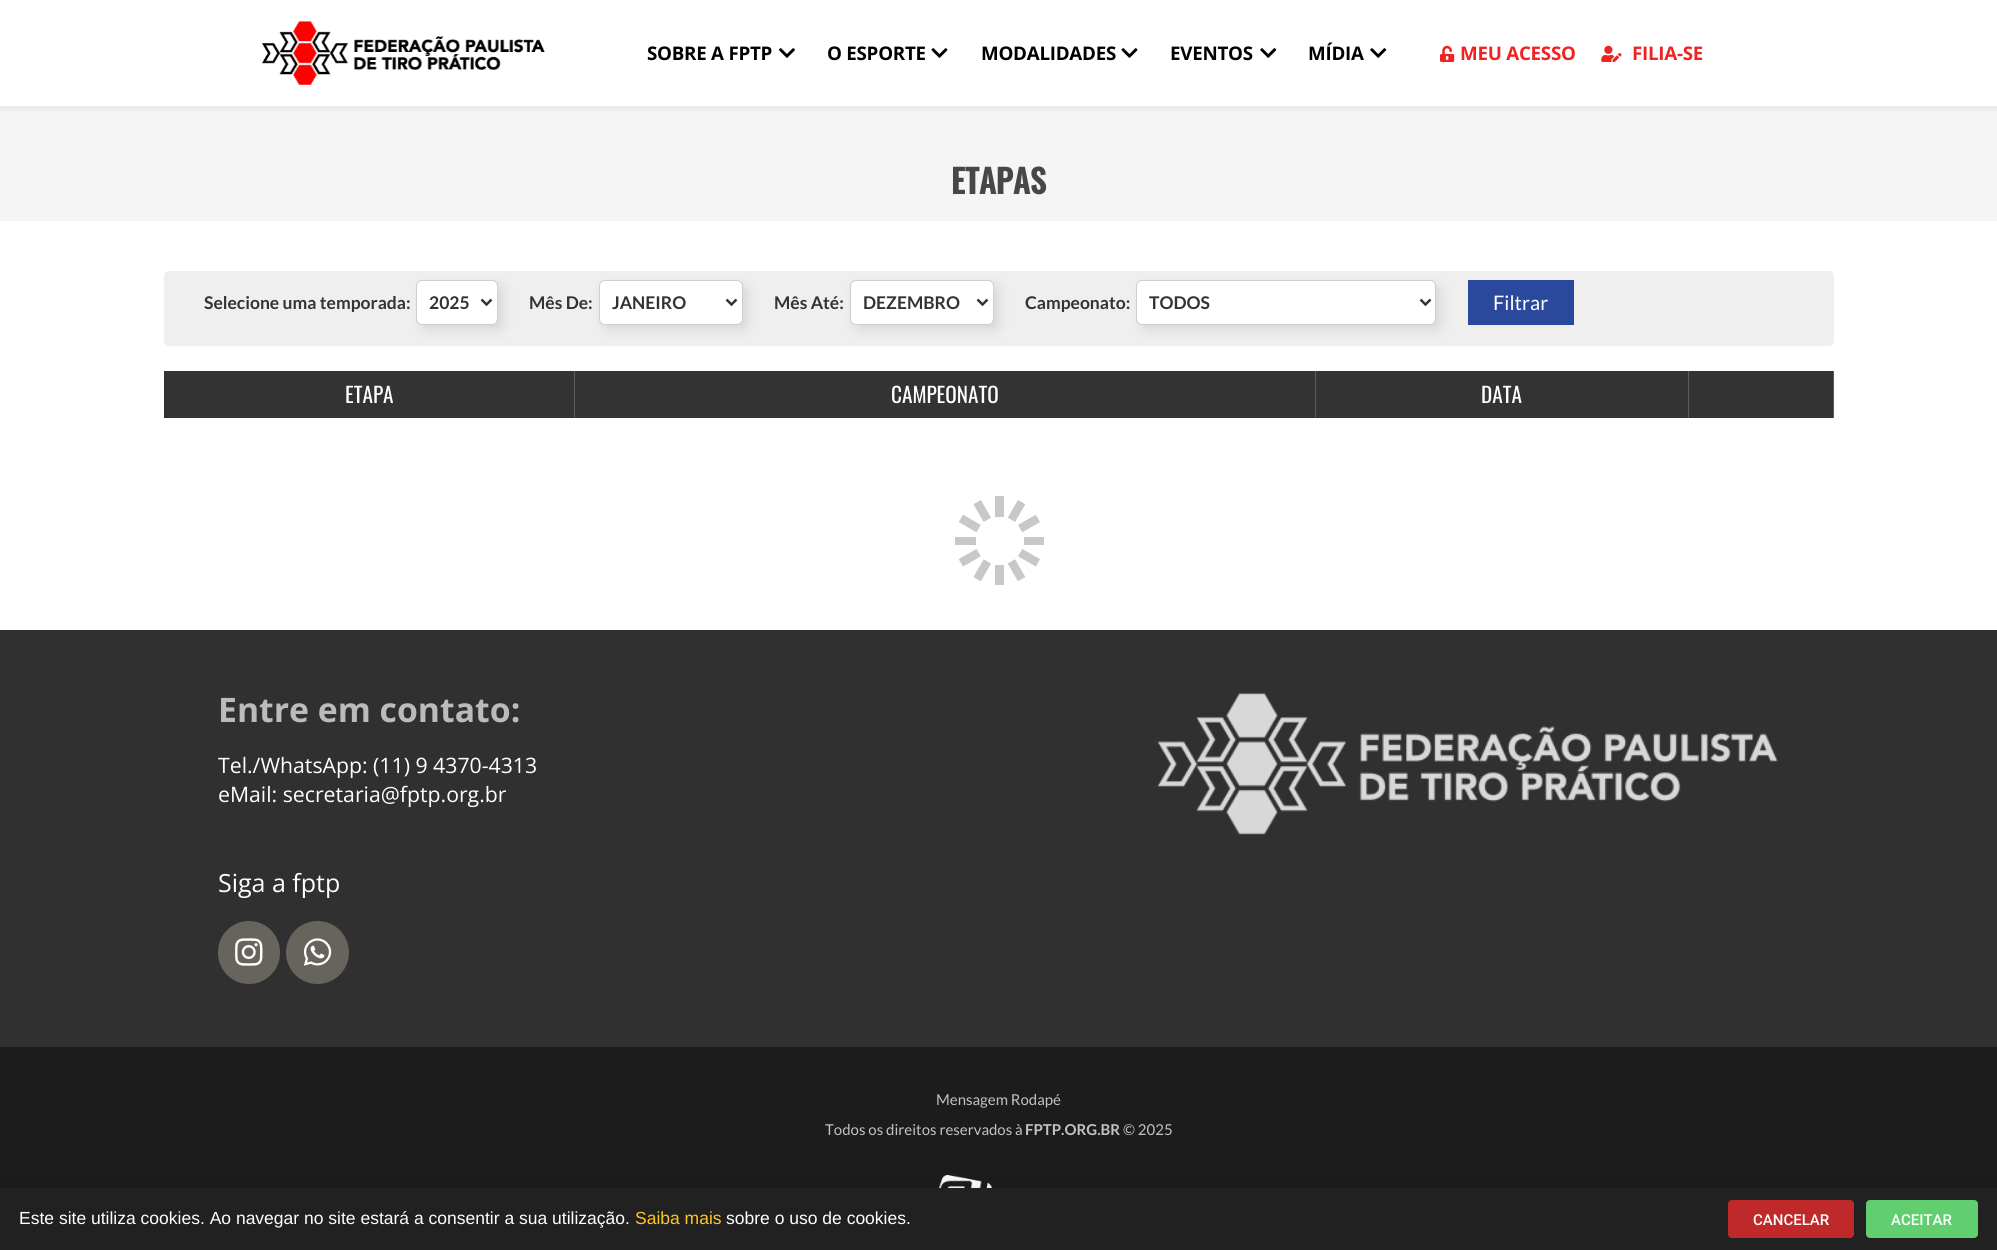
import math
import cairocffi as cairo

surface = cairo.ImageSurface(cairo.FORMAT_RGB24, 1997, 1250)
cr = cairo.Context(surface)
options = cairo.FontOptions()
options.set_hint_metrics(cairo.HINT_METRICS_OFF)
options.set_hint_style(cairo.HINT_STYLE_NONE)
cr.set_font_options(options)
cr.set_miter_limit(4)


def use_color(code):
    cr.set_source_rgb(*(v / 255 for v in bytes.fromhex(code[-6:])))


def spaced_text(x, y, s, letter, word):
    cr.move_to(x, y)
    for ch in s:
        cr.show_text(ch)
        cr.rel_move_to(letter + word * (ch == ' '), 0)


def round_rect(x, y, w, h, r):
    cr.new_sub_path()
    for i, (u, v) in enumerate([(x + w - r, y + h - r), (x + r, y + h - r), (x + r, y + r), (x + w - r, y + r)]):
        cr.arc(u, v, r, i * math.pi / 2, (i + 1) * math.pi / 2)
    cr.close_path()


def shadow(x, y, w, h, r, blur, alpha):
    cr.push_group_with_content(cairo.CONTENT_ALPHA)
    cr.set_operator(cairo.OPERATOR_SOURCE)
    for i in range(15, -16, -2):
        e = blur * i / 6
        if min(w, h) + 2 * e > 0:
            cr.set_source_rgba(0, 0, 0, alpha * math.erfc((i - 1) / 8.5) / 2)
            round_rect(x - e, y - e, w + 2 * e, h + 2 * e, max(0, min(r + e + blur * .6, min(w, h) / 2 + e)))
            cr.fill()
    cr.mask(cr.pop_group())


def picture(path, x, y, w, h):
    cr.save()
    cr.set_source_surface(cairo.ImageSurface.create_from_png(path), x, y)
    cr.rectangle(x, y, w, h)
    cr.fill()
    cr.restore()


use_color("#ffffff")
cr.paint()
use_color("#f5f5f5")
cr.rectangle(0, 106, 1997, 115)
cr.fill()
cr.save()
cr.rectangle(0, 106, 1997, 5)
cr.clip()
use_color("#000000")
shadow(-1, 1, 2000, 109, 0, 3, 0.06)
cr.restore()
picture("img1.png", 262, 21, 283, 64)
cr.select_font_face("Open Sans", cairo.FONT_SLANT_NORMAL, cairo.FONT_WEIGHT_BOLD)
cr.set_font_size(18.75)
use_color("#000000")
spaced_text(647, 60, "SOBRE A FPTP", -0.25, 0)
picture("img2.png", 779, 48, 16, 10)
spaced_text(827, 60, "O ESPORTE", -0.25, 0)
picture("img3.png", 931, 48, 17, 10)
spaced_text(981, 60, "MODALIDADES", -0.25, 0)
picture("img3.png", 1121, 48, 17, 10)
spaced_text(1170, 60, "EVENTOS", -0.25, 0)
picture("img4.png", 1260, 48, 17, 10)
spaced_text(1308, 60, "MÍDIA", -0.25, 0)
picture("img4.png", 1370, 48, 17, 10)
picture("img5.png", 1440, 45, 15, 17)
use_color("#f12222")
spaced_text(1460, 60, "MEU ACESSO", -0.25, 0)
picture("img6.png", 1601, 45, 21, 17)
spaced_text(1632, 60, "FILIA-SE", -0.25, 0)
cr.select_font_face("Oswald", cairo.FONT_SLANT_NORMAL, cairo.FONT_WEIGHT_BOLD)
cr.set_font_size(32.5)
use_color("#474747")
cr.move_to(951, 194)
cr.show_text("ETAPAS")
use_color("#efefef")
round_rect(164, 271, 1670, 75, 5)
cr.fill()
cr.select_font_face("Lato", cairo.FONT_SLANT_NORMAL, cairo.FONT_WEIGHT_BOLD)
cr.set_font_size(17.5)
use_color("#333333")
cr.move_to(204, 309)
cr.show_text("Selecione uma temporada:")
use_color("#000000")
shadow(421, 285, 82, 45, 6, 6, 0.1)
use_color("#ffffff")
round_rect(416.5, 280.5, 81, 44, 5.5)
cr.fill_preserve()
use_color("#cecece")
cr.set_line_width(1)
cr.stroke()
cr.new_path()
cr.move_to(481.5, 299.5)
cr.line_to(486.5, 304.5)
cr.line_to(491.5, 299.5)
use_color("#333333")
cr.set_line_width(2.5)
cr.stroke()
cr.move_to(429, 309)
cr.show_text("2025")
cr.move_to(529, 309)
cr.show_text("Mês De:")
use_color("#000000")
shadow(604, 285, 144, 45, 6, 6, 0.1)
use_color("#ffffff")
round_rect(599.5, 280.5, 143, 44, 5.5)
cr.fill_preserve()
use_color("#cecece")
cr.set_line_width(1)
cr.stroke()
cr.new_path()
cr.move_to(726.5, 299.5)
cr.line_to(731.5, 304.5)
cr.line_to(736.5, 299.5)
use_color("#333333")
cr.set_line_width(2.5)
cr.stroke()
cr.move_to(612, 309)
cr.show_text("JANEIRO")
cr.move_to(774, 309)
cr.show_text("Mês Até:")
use_color("#000000")
shadow(855, 285, 144, 45, 6, 6, 0.1)
use_color("#ffffff")
round_rect(850.5, 280.5, 143, 44, 5.5)
cr.fill_preserve()
use_color("#cecece")
cr.set_line_width(1)
cr.stroke()
cr.new_path()
cr.move_to(977.5, 299.5)
cr.line_to(982.5, 304.5)
cr.line_to(987.5, 299.5)
use_color("#333333")
cr.set_line_width(2.5)
cr.stroke()
cr.move_to(863, 309)
cr.show_text("DEZEMBRO")
cr.move_to(1025, 309)
cr.show_text("Campeonato:")
use_color("#000000")
shadow(1141, 285, 300, 45, 6, 6, 0.1)
use_color("#ffffff")
round_rect(1136.5, 280.5, 299, 44, 5.5)
cr.fill_preserve()
use_color("#cecece")
cr.set_line_width(1)
cr.stroke()
cr.new_path()
cr.move_to(1420.5, 299.5)
cr.line_to(1425.5, 304.5)
cr.line_to(1430.5, 299.5)
use_color("#333333")
cr.set_line_width(2.5)
cr.stroke()
cr.move_to(1149, 309)
cr.show_text("TODOS")
use_color("#2b499c")
cr.rectangle(1468, 280, 106, 45)
cr.fill()
cr.select_font_face("Lato")
cr.set_font_size(20)
use_color("#ffffff")
cr.move_to(1493, 310)
cr.show_text("Filtrar")
use_color("#333333")
cr.rectangle(164, 371, 410, 47)
cr.fill()
use_color("#5c5c5c")
cr.rectangle(574, 371, 1, 47)
cr.fill()
cr.select_font_face("Oswald")
cr.set_font_size(21.25)
use_color("#ffffff")
cr.move_to(345, 403)
cr.show_text("ETAPA")
use_color("#333333")
cr.rectangle(575, 371, 740, 47)
cr.fill()
use_color("#5c5c5c")
cr.rectangle(1315, 371, 1, 47)
cr.fill()
use_color("#ffffff")
cr.move_to(891, 403)
cr.show_text("CAMPEONATO")
use_color("#333333")
cr.rectangle(1316, 371, 372, 47)
cr.fill()
use_color("#ffffff")
cr.move_to(1481, 403)
cr.show_text("DATA")
use_color("#333333")
cr.rectangle(1689, 371, 144, 47)
cr.fill()
use_color("#5c5c5c")
cr.rectangle(1688, 371, 1, 47)
cr.fill()
cr.rectangle(1833, 371, 1, 47)
cr.fill()
picture("img7.png", 955, 496, 89, 89)
use_color("#303030")
cr.rectangle(0, 630, 1997, 417)
cr.fill()
cr.select_font_face("Open Sans", cairo.FONT_SLANT_NORMAL, cairo.FONT_WEIGHT_BOLD)
cr.set_font_size(33.75)
use_color("#bbbbbb")
cr.move_to(218, 722)
cr.show_text("Entre em contato:")
cr.select_font_face("Open Sans")
cr.set_font_size(21.25)
use_color("#ffffff")
cr.move_to(218, 773)
cr.show_text("Tel./WhatsApp: (11) 9 4370-4313")
cr.move_to(218, 802)
cr.show_text("eMail: secretaria@fptp.org.br")
cr.set_font_size(25)
cr.move_to(218, 892)
cr.show_text("Siga a fptp")
use_color("#66645d")
round_rect(218, 921, 62, 63, 31)
cr.fill()
picture("img8.png", 235, 938, 28, 28)
cr.arc(317.5, 952.5, 31.5, 0, 2 * math.pi)
cr.fill()
picture("img9.png", 303, 938, 29, 28)
picture("img10.png", 1157, 692, 621, 143)
use_color("#1c1c1c")
cr.rectangle(0, 1047, 1997, 141)
cr.fill()
cr.select_font_face("Lato")
cr.set_font_size(15)
use_color("#c2c2c2")
cr.move_to(936, 1105)
cr.show_text("Mensagem Rodapé")
cr.move_to(825, 1135)
cr.show_text("Todos os direitos reservados à")
cr.select_font_face("Lato", cairo.FONT_SLANT_NORMAL, cairo.FONT_WEIGHT_BOLD)
cr.move_to(1025, 1135)
cr.show_text("FPTP.ORG.BR")
cr.select_font_face("Lato")
cr.move_to(1123, 1135)
cr.show_text("© 2025")
picture("img11.png", 938, 1175, 55, 13)
use_color("#000000")
shadow(-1, 1194, 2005, 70, 0, 14.5, 0.2)
use_color("#212121")
cr.rectangle(0, 1188, 1997, 62)
cr.fill()
cr.select_font_face("Liberation Sans")
cr.set_font_size(17.5)
use_color("#ffffff")
cr.move_to(19, 1224)
cr.show_text("Este site utiliza cookies. Ao navegar no site estará a consentir a sua utilização.")
use_color("#fec726")
cr.move_to(635, 1224)
cr.show_text("Saiba mais")
use_color("#ffffff")
cr.move_to(726, 1224)
cr.show_text("sobre o uso de cookies.")
use_color("#bf2929")
round_rect(1728, 1200, 126, 38, 4)
cr.fill()
cr.select_font_face("Roboto Medium")
cr.set_font_size(15)
use_color("#ffffff")
cr.move_to(1753, 1225)
cr.show_text("CANCELAR")
use_color("#61ce70")
round_rect(1866, 1200, 112, 38, 4)
cr.fill()
use_color("#ffffff")
cr.move_to(1891, 1225)
cr.show_text("ACEITAR")
surface.write_to_png("result.png")
